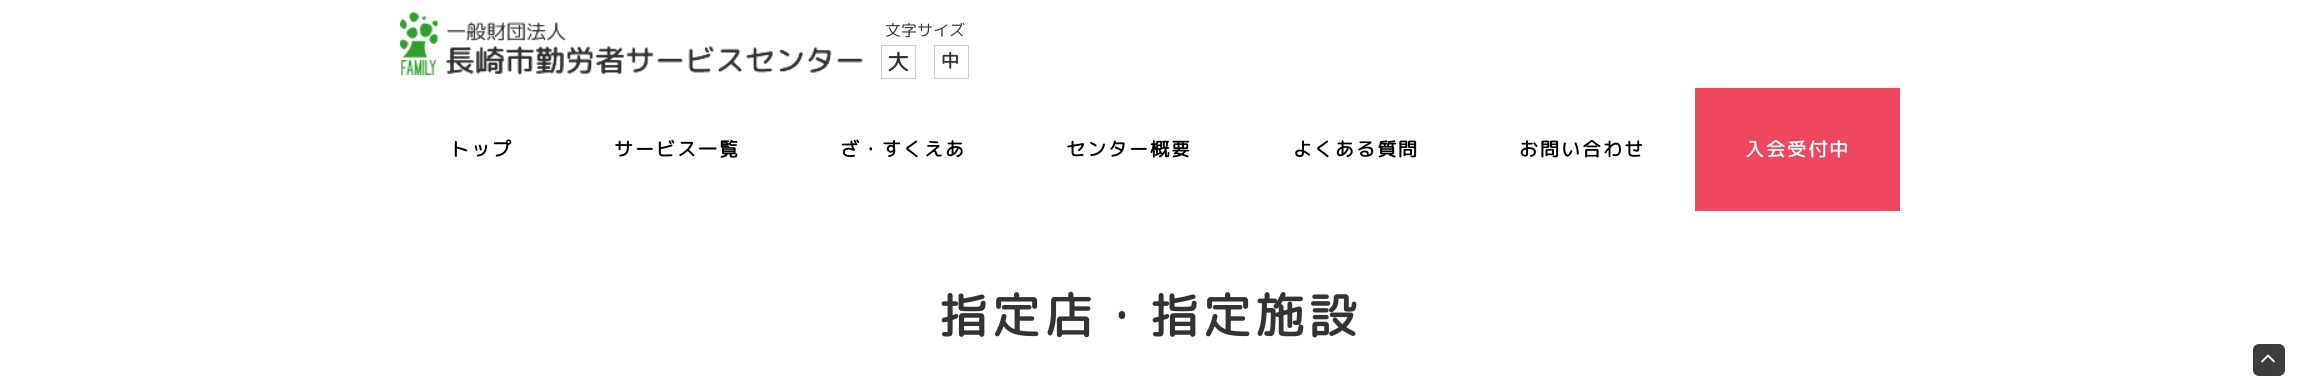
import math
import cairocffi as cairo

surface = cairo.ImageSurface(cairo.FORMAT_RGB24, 2300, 391)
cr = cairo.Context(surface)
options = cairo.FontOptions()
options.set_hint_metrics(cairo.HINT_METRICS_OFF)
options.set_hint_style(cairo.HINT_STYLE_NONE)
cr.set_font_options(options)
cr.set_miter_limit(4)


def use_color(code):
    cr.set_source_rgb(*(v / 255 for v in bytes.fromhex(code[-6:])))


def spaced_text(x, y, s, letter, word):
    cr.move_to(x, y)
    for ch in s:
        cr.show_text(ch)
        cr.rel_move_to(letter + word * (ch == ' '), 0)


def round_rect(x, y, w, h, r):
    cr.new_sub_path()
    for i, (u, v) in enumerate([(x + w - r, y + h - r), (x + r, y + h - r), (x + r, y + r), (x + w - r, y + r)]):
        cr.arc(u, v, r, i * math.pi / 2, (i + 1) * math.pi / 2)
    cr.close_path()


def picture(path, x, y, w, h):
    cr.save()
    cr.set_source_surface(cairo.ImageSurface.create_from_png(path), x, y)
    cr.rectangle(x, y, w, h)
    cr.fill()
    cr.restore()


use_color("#ffffff")
cr.paint()
picture("img1.png", 400, 12, 463, 63)
cr.select_font_face("Rounded Mplus 1c")
cr.set_font_size(16)
use_color("#333333")
cr.move_to(885, 36)
cr.show_text("文字サイズ")
cr.rectangle(881.5, 45.5, 34, 33)
use_color("#cccccc")
cr.set_line_width(1)
cr.stroke()
cr.select_font_face("Rounded Mplus 1c", cairo.FONT_SLANT_NORMAL, cairo.FONT_WEIGHT_BOLD)
cr.set_font_size(22)
use_color("#333333")
spaced_text(887, 70, "大", 2, 0)
cr.rectangle(934.5, 45.5, 34, 33)
use_color("#cccccc")
cr.stroke()
cr.set_font_size(18)
use_color("#333333")
spaced_text(941, 67, "中", 2, 0)
cr.set_font_size(19)
use_color("#000000")
spaced_text(450, 156, "トップ", 2, 0)
spaced_text(614, 156, "サービス一覧", 2, 0)
spaced_text(840, 156, "ざ・すくえあ", 2, 0)
spaced_text(1066, 156, "センター概要", 2, 0)
spaced_text(1293, 156, "よくある質問", 2, 0)
spaced_text(1519, 156, "お問い合わせ", 2, 0)
use_color("#ef4760")
cr.rectangle(1695, 88, 205, 123)
cr.fill()
use_color("#ffffff")
spaced_text(1745, 156, "入会受付中", 2, 0)
cr.set_font_size(48)
use_color("#333333")
spaced_text(939, 333, "指定店・指定施設", 4.75, 0)
use_color("#3d3d3d")
round_rect(2253, 344, 32, 32, 6)
cr.fill()
picture("img2.png", 2261, 354, 14, 9)
surface.write_to_png("result.png")
